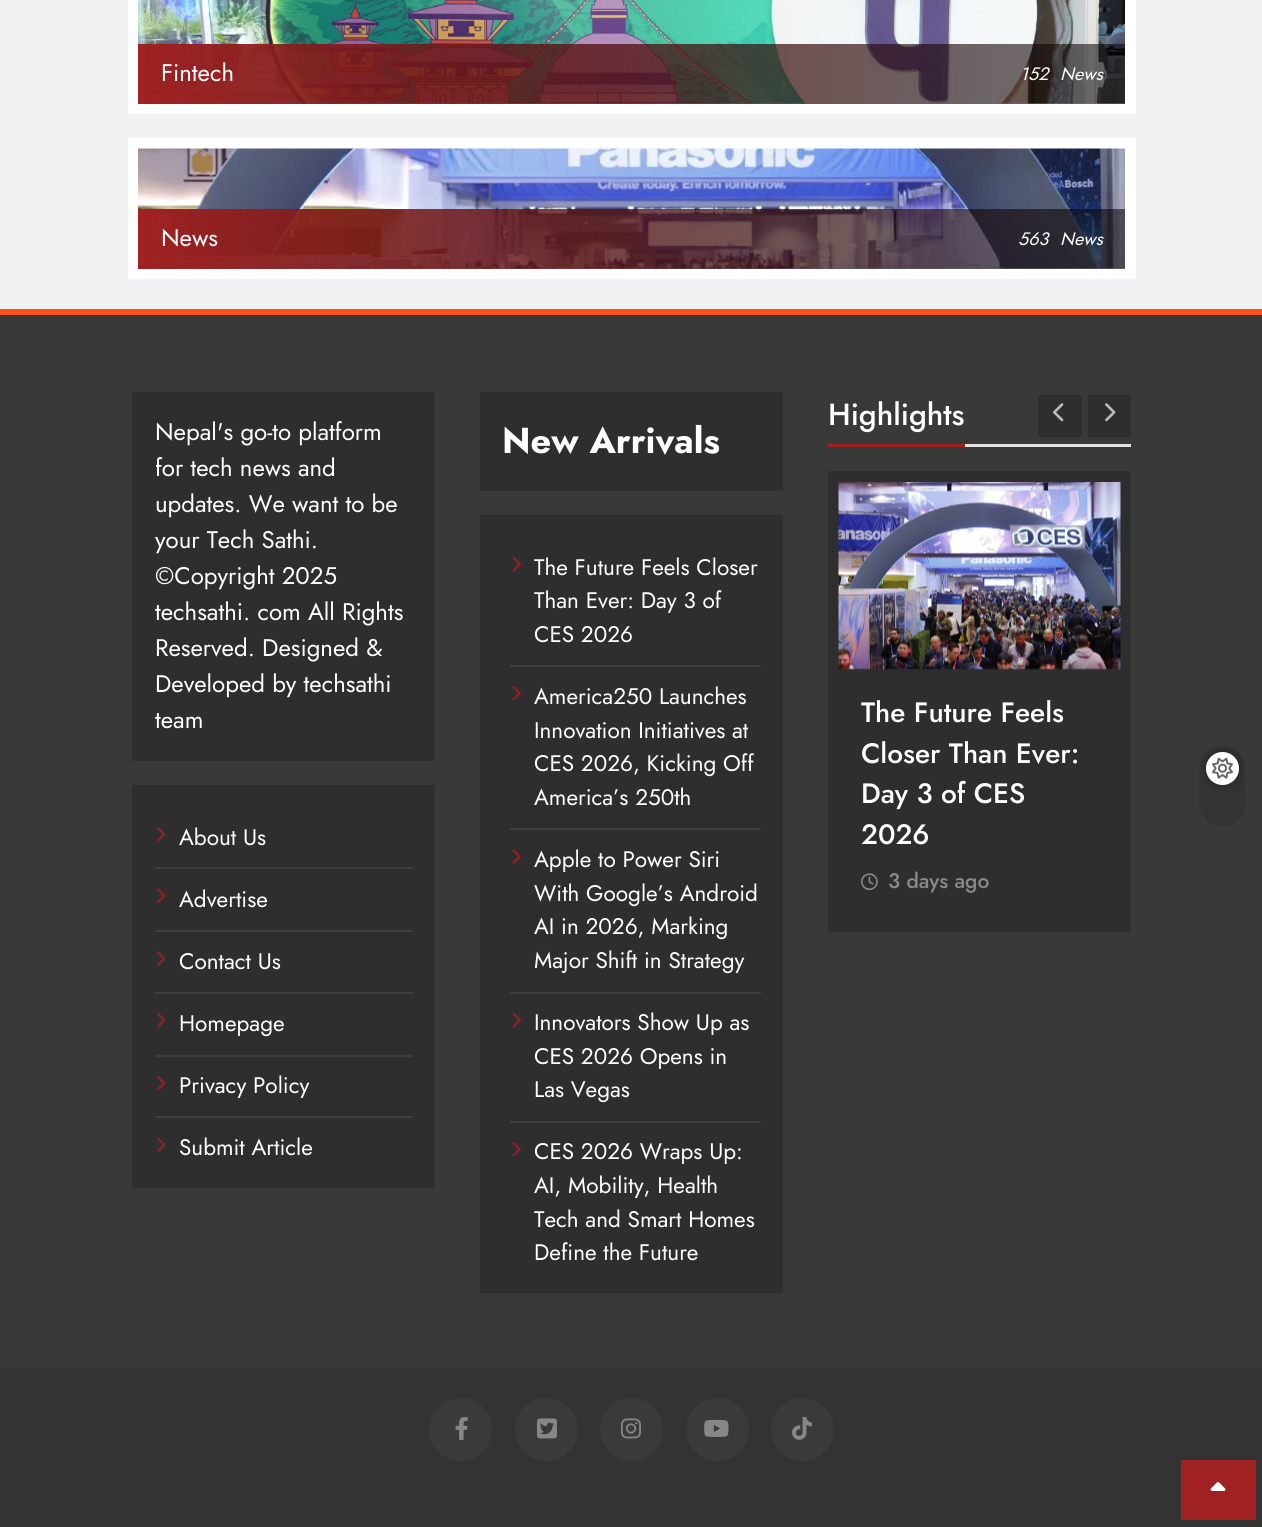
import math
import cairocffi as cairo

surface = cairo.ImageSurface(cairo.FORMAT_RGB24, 1262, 1527)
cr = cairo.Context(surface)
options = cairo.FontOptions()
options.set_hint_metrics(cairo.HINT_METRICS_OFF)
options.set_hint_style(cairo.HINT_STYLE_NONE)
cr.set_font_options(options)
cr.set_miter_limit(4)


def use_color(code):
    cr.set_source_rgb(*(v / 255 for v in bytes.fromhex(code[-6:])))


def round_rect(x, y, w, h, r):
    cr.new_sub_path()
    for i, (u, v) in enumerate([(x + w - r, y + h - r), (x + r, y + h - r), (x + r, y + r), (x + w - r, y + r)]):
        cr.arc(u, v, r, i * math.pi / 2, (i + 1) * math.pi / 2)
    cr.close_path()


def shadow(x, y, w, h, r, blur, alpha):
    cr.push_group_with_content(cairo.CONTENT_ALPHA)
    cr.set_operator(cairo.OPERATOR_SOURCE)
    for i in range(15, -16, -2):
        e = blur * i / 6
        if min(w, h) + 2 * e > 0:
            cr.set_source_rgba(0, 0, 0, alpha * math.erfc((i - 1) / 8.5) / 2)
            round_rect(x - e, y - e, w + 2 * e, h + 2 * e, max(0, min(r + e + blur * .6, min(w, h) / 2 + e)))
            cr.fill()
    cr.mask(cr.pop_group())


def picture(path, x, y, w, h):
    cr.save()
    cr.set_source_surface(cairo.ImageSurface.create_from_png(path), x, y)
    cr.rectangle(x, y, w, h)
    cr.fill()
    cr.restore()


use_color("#f0f1f2")
cr.paint()
use_color("#ffffff")
cr.rectangle(128, 0, 1008, 114)
cr.fill()
picture("img1.png", 138, 0, 987, 104)
gradient = cairo.LinearGradient(138, 74, 1125, 73)
gradient.add_color_stop_rgba(0, 0.627, 0.129, 0.129, 1)
gradient.add_color_stop_rgba(1, 0, 0, 0, 0.54)
cr.set_source(gradient)
cr.rectangle(138, 44, 987, 60)
cr.fill()
cr.select_font_face("Jost")
cr.set_font_size(24)
use_color("#ffffff")
cr.move_to(161, 81)
cr.show_text("Fintech")
cr.select_font_face("Jost", cairo.FONT_SLANT_ITALIC)
cr.set_font_size(18)
cr.move_to(1020, 80)
cr.show_text("152")
cr.move_to(1060, 80)
cr.show_text("News")
cr.rectangle(128, 138, 1008, 141)
cr.fill()
picture("img2.png", 138, 148, 987, 121)
gradient = cairo.LinearGradient(138, 239, 1125, 238)
gradient.add_color_stop_rgba(0, 0.627, 0.129, 0.129, 1)
gradient.add_color_stop_rgba(1, 0, 0, 0, 0.54)
cr.set_source(gradient)
cr.rectangle(138, 209, 987, 60)
cr.fill()
cr.select_font_face("Jost")
cr.set_font_size(24)
use_color("#ffffff")
cr.move_to(161, 246)
cr.show_text("News")
cr.select_font_face("Jost", cairo.FONT_SLANT_ITALIC)
cr.set_font_size(18)
cr.move_to(1018, 245)
cr.show_text("563")
cr.move_to(1060, 245)
cr.show_text("News")
use_color("#393939")
cr.rectangle(0, 315, 1262, 1053)
cr.fill()
use_color("#333333")
cr.new_path()
cr.move_to(1245, 768)
cr.line_to(1245, 804)
cr.curve_to(1244, 829, 1211, 836, 1201, 813)
cr.curve_to(1198, 805, 1199, 795, 1199, 786)
cr.line_to(1199, 768)
cr.curve_to(1201, 738, 1245, 739, 1245, 768)
cr.close_path()
cr.fill()
use_color("#000000")
shadow(1206, 752, 33, 33, 16.5, 4, 0.35)
use_color("#ffffff")
cr.arc(1222.5, 768.5, 16.5, 0, 2 * math.pi)
cr.fill()
picture("img3.png", 1212, 757, 21, 22)
use_color("#fd4f18")
cr.rectangle(0, 309, 1262, 6)
cr.fill()
use_color("#2e2e2e")
cr.rectangle(132, 392, 303, 369)
cr.fill()
cr.select_font_face("Jost")
cr.set_font_size(24)
use_color("#ffffff")
cr.move_to(155, 440)
cr.show_text("Nepal's go-to platform")
cr.move_to(155, 476)
cr.show_text("for tech news and")
cr.move_to(155, 512)
cr.show_text("updates. We want to be")
cr.move_to(155, 548)
cr.show_text("your Tech Sathi.")
cr.move_to(155, 584)
cr.show_text("©Copyright 2025")
cr.move_to(155, 620)
cr.show_text("techsathi. com All Rights")
cr.move_to(155, 656)
cr.show_text("Reserved. Designed &")
cr.move_to(155, 692)
cr.show_text("Developed by techsathi")
cr.move_to(155, 728)
cr.show_text("team")
use_color("#2e2e2e")
cr.rectangle(132, 785, 303, 403)
cr.fill()
use_color("#3f3f3f")
cr.rectangle(155, 867, 258, 2)
cr.fill()
picture("img4.png", 157, 826, 9, 16)
cr.set_font_size(22.5)
use_color("#ffffff")
cr.move_to(179, 845)
cr.show_text("About Us")
use_color("#3f3f3f")
cr.rectangle(155, 930, 258, 2)
cr.fill()
picture("img5.png", 157, 888, 9, 15)
use_color("#ffffff")
cr.move_to(179, 907)
cr.show_text("Advertise")
use_color("#3f3f3f")
cr.rectangle(155, 992, 258, 2)
cr.fill()
picture("img5.png", 157, 951, 9, 15)
use_color("#ffffff")
cr.move_to(179, 969)
cr.show_text("Contact Us")
use_color("#3f3f3f")
cr.rectangle(155, 1055, 258, 2)
cr.fill()
picture("img4.png", 157, 1012, 9, 16)
use_color("#ffffff")
cr.move_to(179, 1031)
cr.show_text("Homepage")
use_color("#3f3f3f")
cr.rectangle(155, 1116, 258, 2)
cr.fill()
picture("img4.png", 157, 1075, 9, 16)
use_color("#ffffff")
cr.move_to(179, 1093)
cr.show_text("Privacy Policy")
picture("img5.png", 157, 1137, 9, 15)
cr.move_to(179, 1155)
cr.show_text("Submit Article")
use_color("#2e2e2e")
cr.rectangle(480, 392, 303, 99)
cr.fill()
cr.select_font_face("Jost", cairo.FONT_SLANT_NORMAL, cairo.FONT_WEIGHT_BOLD)
cr.set_font_size(36)
use_color("#ffffff")
cr.move_to(502, 453)
cr.show_text("New Arrivals")
use_color("#2e2e2e")
cr.rectangle(480, 515, 303, 778)
cr.fill()
use_color("#3f3f3f")
cr.rectangle(510, 665, 251, 2)
cr.fill()
picture("img6.png", 512, 556, 9, 16)
cr.select_font_face("Jost")
cr.set_font_size(22.5)
use_color("#ffffff")
cr.move_to(534, 575)
cr.show_text("The Future Feels Closer")
cr.move_to(534, 608)
cr.show_text("Than Ever: Day 3 of")
cr.move_to(534, 642)
cr.show_text("CES 2026")
use_color("#3f3f3f")
cr.rectangle(510, 828, 251, 2)
cr.fill()
picture("img6.png", 512, 685, 9, 16)
use_color("#ffffff")
cr.move_to(534, 704)
cr.show_text("America250 Launches")
cr.move_to(534, 738)
cr.show_text("Innovation Initiatives at")
cr.move_to(534, 771)
cr.show_text("CES 2026, Kicking Off")
cr.move_to(534, 805)
cr.show_text("America’s 250th")
use_color("#3f3f3f")
cr.rectangle(510, 992, 251, 2)
cr.fill()
picture("img7.png", 512, 849, 9, 15)
use_color("#ffffff")
cr.move_to(534, 867)
cr.show_text("Apple to Power Siri")
cr.move_to(534, 901)
cr.show_text("With Google’s Android")
cr.move_to(534, 934)
cr.show_text("AI in 2026, Marking")
cr.move_to(534, 968)
cr.show_text("Major Shift in Strategy")
use_color("#3f3f3f")
cr.rectangle(510, 1121, 251, 2)
cr.fill()
picture("img6.png", 512, 1012, 9, 16)
use_color("#ffffff")
cr.move_to(534, 1030)
cr.show_text("Innovators Show Up as")
cr.move_to(534, 1064)
cr.show_text("CES 2026 Opens in")
cr.move_to(534, 1097)
cr.show_text("Las Vegas")
picture("img6.png", 512, 1141, 9, 16)
cr.move_to(534, 1159)
cr.show_text("CES 2026 Wraps Up:")
cr.move_to(534, 1193)
cr.show_text("AI, Mobility, Health")
cr.move_to(534, 1227)
cr.show_text("Tech and Smart Homes")
cr.move_to(534, 1260)
cr.show_text("Define the Future")
use_color("#e5e5e5")
cr.rectangle(965, 444, 166, 3)
cr.fill()
use_color("#a02121")
cr.rectangle(828, 444, 137, 3)
cr.fill()
cr.select_font_face("Jost Medium")
cr.set_font_size(30.5)
use_color("#ffffff")
cr.move_to(828, 425)
cr.show_text("Highlights")
use_color("#2e2e2e")
cr.rectangle(1038, 395, 44, 42)
cr.fill()
picture("img8.png", 1053, 403, 11, 19)
cr.rectangle(1088, 395, 43, 42)
cr.fill()
picture("img9.png", 1105, 403, 11, 19)
cr.rectangle(828, 471, 303, 461)
cr.fill()
picture("img10.png", 838, 482, 283, 188)
cr.set_font_size(28)
use_color("#ffffff")
cr.move_to(861, 722)
cr.show_text("The Future Feels")
cr.move_to(861, 763)
cr.show_text("Closer Than Ever:")
cr.move_to(861, 803)
cr.show_text("Day 3 of CES")
cr.move_to(861, 844)
cr.show_text("2026")
picture("img11.png", 861, 873, 17, 18)
cr.set_font_size(21)
use_color("#8a8a8c")
cr.move_to(888, 888)
cr.show_text("3 days ago")
use_color("#333333")
cr.rectangle(0, 1368, 1262, 159)
cr.fill()
use_color("#3a3a3a")
cr.arc(460.5, 1429.5, 31.5, 0, 2 * math.pi)
cr.fill()
picture("img12.png", 455, 1417, 13, 23)
cr.arc(546.5, 1429.5, 31.5, 0, 2 * math.pi)
cr.fill()
picture("img13.png", 537, 1418, 20, 21)
cr.arc(631.5, 1429.5, 31.5, 0, 2 * math.pi)
cr.fill()
picture("img14.png", 621, 1418, 20, 21)
cr.arc(717.5, 1429.5, 31.5, 0, 2 * math.pi)
cr.fill()
picture("img15.png", 704, 1419, 25, 18)
cr.arc(802.5, 1429.5, 31.5, 0, 2 * math.pi)
cr.fill()
picture("img16.png", 792, 1417, 20, 23)
use_color("#a02121")
cr.rectangle(1181, 1460, 75, 60)
cr.fill()
picture("img17.png", 1210, 1482, 16, 9)
surface.write_to_png("result.png")
